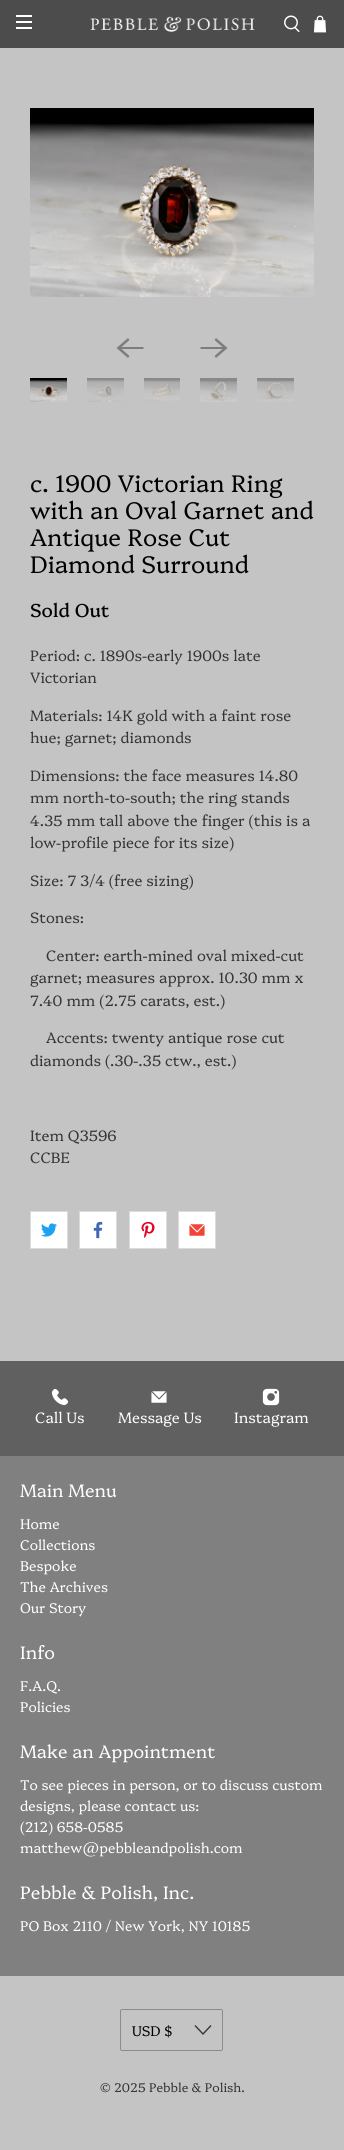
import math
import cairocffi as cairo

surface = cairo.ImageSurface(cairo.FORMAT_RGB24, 344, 2150)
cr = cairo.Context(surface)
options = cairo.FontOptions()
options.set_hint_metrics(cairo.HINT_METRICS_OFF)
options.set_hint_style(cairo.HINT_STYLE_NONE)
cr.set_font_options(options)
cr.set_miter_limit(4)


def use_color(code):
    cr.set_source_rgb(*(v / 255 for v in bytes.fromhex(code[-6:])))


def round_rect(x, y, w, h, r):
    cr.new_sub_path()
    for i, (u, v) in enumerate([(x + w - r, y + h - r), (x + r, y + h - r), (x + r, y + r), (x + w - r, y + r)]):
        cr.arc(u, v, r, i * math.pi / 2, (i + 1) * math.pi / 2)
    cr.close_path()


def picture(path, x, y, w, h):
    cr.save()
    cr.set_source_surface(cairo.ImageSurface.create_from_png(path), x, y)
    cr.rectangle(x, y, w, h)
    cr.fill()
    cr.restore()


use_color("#c4c4c4")
cr.paint()
use_color("#4c4c4c")
cr.rectangle(0, 0, 344, 48)
cr.fill()
use_color("#ffffff")
cr.rectangle(16, 15, 16, 2)
cr.fill()
cr.rectangle(16, 21, 16, 2)
cr.fill()
cr.rectangle(16, 27, 16, 2)
cr.fill()
picture("img1.png", 90, 16, 165, 16)
picture("img2.png", 284, 15, 16, 18)
picture("img3.png", 314, 15, 12, 18)
picture("img4.png", 30, 108, 284, 189)
use_color("#7d7d7d")
cr.new_path()
cr.move_to(143.5, 347)
cr.line_to(121.5, 347)
cr.line_to(129.5, 340)
cr.line_to(128, 338)
cr.line_to(116.5, 348)
cr.line_to(128, 358)
cr.line_to(129.5, 356)
cr.line_to(121.5, 349)
cr.line_to(143.5, 349)
cr.close_path()
cr.fill()
cr.new_path()
cr.move_to(200.5, 349)
cr.line_to(222.5, 349)
cr.line_to(214.5, 356)
cr.line_to(216, 358)
cr.line_to(227.5, 348)
cr.line_to(216, 338)
cr.line_to(214.5, 340)
cr.line_to(222.5, 347)
cr.line_to(200.5, 347)
cr.close_path()
cr.fill()
picture("img5.png", 30, 378, 37, 24)
picture("img6.png", 87, 378, 37, 24)
picture("img7.png", 144, 378, 36, 24)
picture("img8.png", 200, 378, 37, 24)
picture("img9.png", 257, 378, 37, 24)
cr.select_font_face("Platypi Light")
cr.set_font_size(24)
use_color("#000000")
cr.move_to(30, 492)
cr.show_text("c. 1900 Victorian Ring")
cr.move_to(30, 519)
cr.show_text("with an Oval Garnet and")
cr.move_to(30, 546)
cr.show_text("Antique Rose Cut")
cr.move_to(30, 573)
cr.show_text("Diamond Surround")
cr.select_font_face("Platypi")
cr.set_font_size(18.75)
cr.move_to(30, 617)
cr.show_text("Sold Out")
cr.select_font_face("Platypi Light")
cr.set_font_size(15)
use_color("#353535")
cr.move_to(30, 661)
cr.show_text("Period: c. 1890s-early 1900s late")
cr.move_to(30, 683)
cr.show_text("Victorian")
cr.move_to(30, 721)
cr.show_text("Materials: 14K gold with a faint rose")
cr.move_to(30, 743)
cr.show_text("hue; garnet; diamonds")
cr.move_to(30, 781)
cr.show_text("Dimensions: the face measures 14.80")
cr.move_to(30, 803)
cr.show_text("mm north-to-south; the ring stands")
cr.move_to(30, 826)
cr.show_text("4.35 mm tall above the finger (this is a")
cr.move_to(30, 848)
cr.show_text("low-profile piece for its size)")
cr.move_to(30, 886)
cr.show_text("Size: 7 3/4 (free sizing)")
cr.move_to(30, 923)
cr.show_text("Stones:")
cr.move_to(46, 961)
cr.show_text("Center: earth-mined oval mixed-cut")
cr.move_to(30, 983)
cr.show_text("garnet; measures approx. 10.30 mm x")
cr.move_to(30, 1006)
cr.show_text("7.40 mm (2.75 carats, est.)")
cr.move_to(46, 1043)
cr.show_text("Accents: twenty antique rose cut")
cr.move_to(30, 1066)
cr.show_text("diamonds (.30-.35 ctw., est.)")
cr.move_to(30, 1141)
cr.show_text("Item Q3596")
cr.move_to(30, 1163)
cr.show_text("CCBE")
use_color("#ffffff")
cr.rectangle(30.5, 1211.5, 37, 37)
cr.fill_preserve()
use_color("#dbdbdb")
cr.set_line_width(1)
cr.stroke()
picture("img10.png", 41, 1223, 16, 14)
use_color("#ffffff")
cr.rectangle(79.5, 1211.5, 37, 37)
cr.fill_preserve()
use_color("#dbdbdb")
cr.stroke()
picture("img11.png", 93, 1221, 10, 18)
use_color("#ffffff")
cr.rectangle(129.5, 1211.5, 37, 37)
cr.fill_preserve()
use_color("#dbdbdb")
cr.stroke()
picture("img12.png", 141, 1221, 14, 17)
use_color("#ffffff")
cr.rectangle(178.5, 1211.5, 37, 37)
cr.fill_preserve()
use_color("#dbdbdb")
cr.stroke()
picture("img13.png", 189, 1224, 16, 12)
use_color("#606060")
cr.rectangle(0, 1361, 344, 95)
cr.fill()
picture("img14.png", 51, 1388, 18, 18)
use_color("#ffffff")
cr.move_to(35, 1423)
cr.show_text("Call Us")
picture("img15.png", 151, 1391, 16, 12)
cr.move_to(118, 1423)
cr.show_text("Message Us")
picture("img16.png", 262, 1388, 18, 18)
cr.move_to(234, 1423)
cr.show_text("Instagram")
use_color("#808080")
cr.rectangle(0, 1456, 344, 520)
cr.fill()
cr.set_font_size(18)
use_color("#ffffff")
cr.move_to(20, 1497)
cr.show_text("Main Menu")
cr.set_font_size(14)
cr.move_to(20, 1529)
cr.show_text("Home")
cr.move_to(20, 1550)
cr.show_text("Collections")
cr.move_to(20, 1571)
cr.show_text("Bespoke")
cr.move_to(20, 1592)
cr.show_text("The Archives")
cr.move_to(20, 1613)
cr.show_text("Our Story")
cr.set_font_size(18)
cr.move_to(20, 1659)
cr.show_text("Info")
cr.set_font_size(14)
cr.move_to(20, 1691)
cr.show_text("F.A.Q.")
cr.move_to(20, 1712)
cr.show_text("Policies")
cr.set_font_size(18)
cr.move_to(20, 1758)
cr.show_text("Make an Appointment")
cr.set_font_size(14)
cr.move_to(20, 1790)
cr.show_text("To see pieces in person, or to discuss custom")
cr.move_to(20, 1811)
cr.show_text("designs, please contact us:")
cr.move_to(20, 1832)
cr.show_text("(212) 658-0585")
cr.move_to(20, 1853)
cr.show_text("matthew@pebbleandpolish.com")
cr.set_font_size(18)
cr.move_to(20, 1899)
cr.show_text("Pebble & Polish, Inc.")
cr.set_font_size(14)
cr.move_to(20, 1931)
cr.show_text("PO Box 2110 / New York, NY 10185")
round_rect(120.5, 2009.5, 102, 41, 1.5)
use_color("#8c8c8c")
cr.stroke()
use_color("#000000")
cr.move_to(132, 2036)
cr.show_text("USD $")
use_color("#353535")
cr.new_path()
cr.move_to(203, 2035)
cr.line_to(194.5, 2026)
cr.line_to(195.5, 2025)
cr.line_to(203, 2033)
cr.line_to(210.5, 2025)
cr.line_to(211.5, 2026)
cr.close_path()
cr.fill()
cr.set_font_size(12.5)
cr.move_to(100, 2092)
cr.show_text("© 2025 Pebble & Polish.")
surface.write_to_png("result.png")
